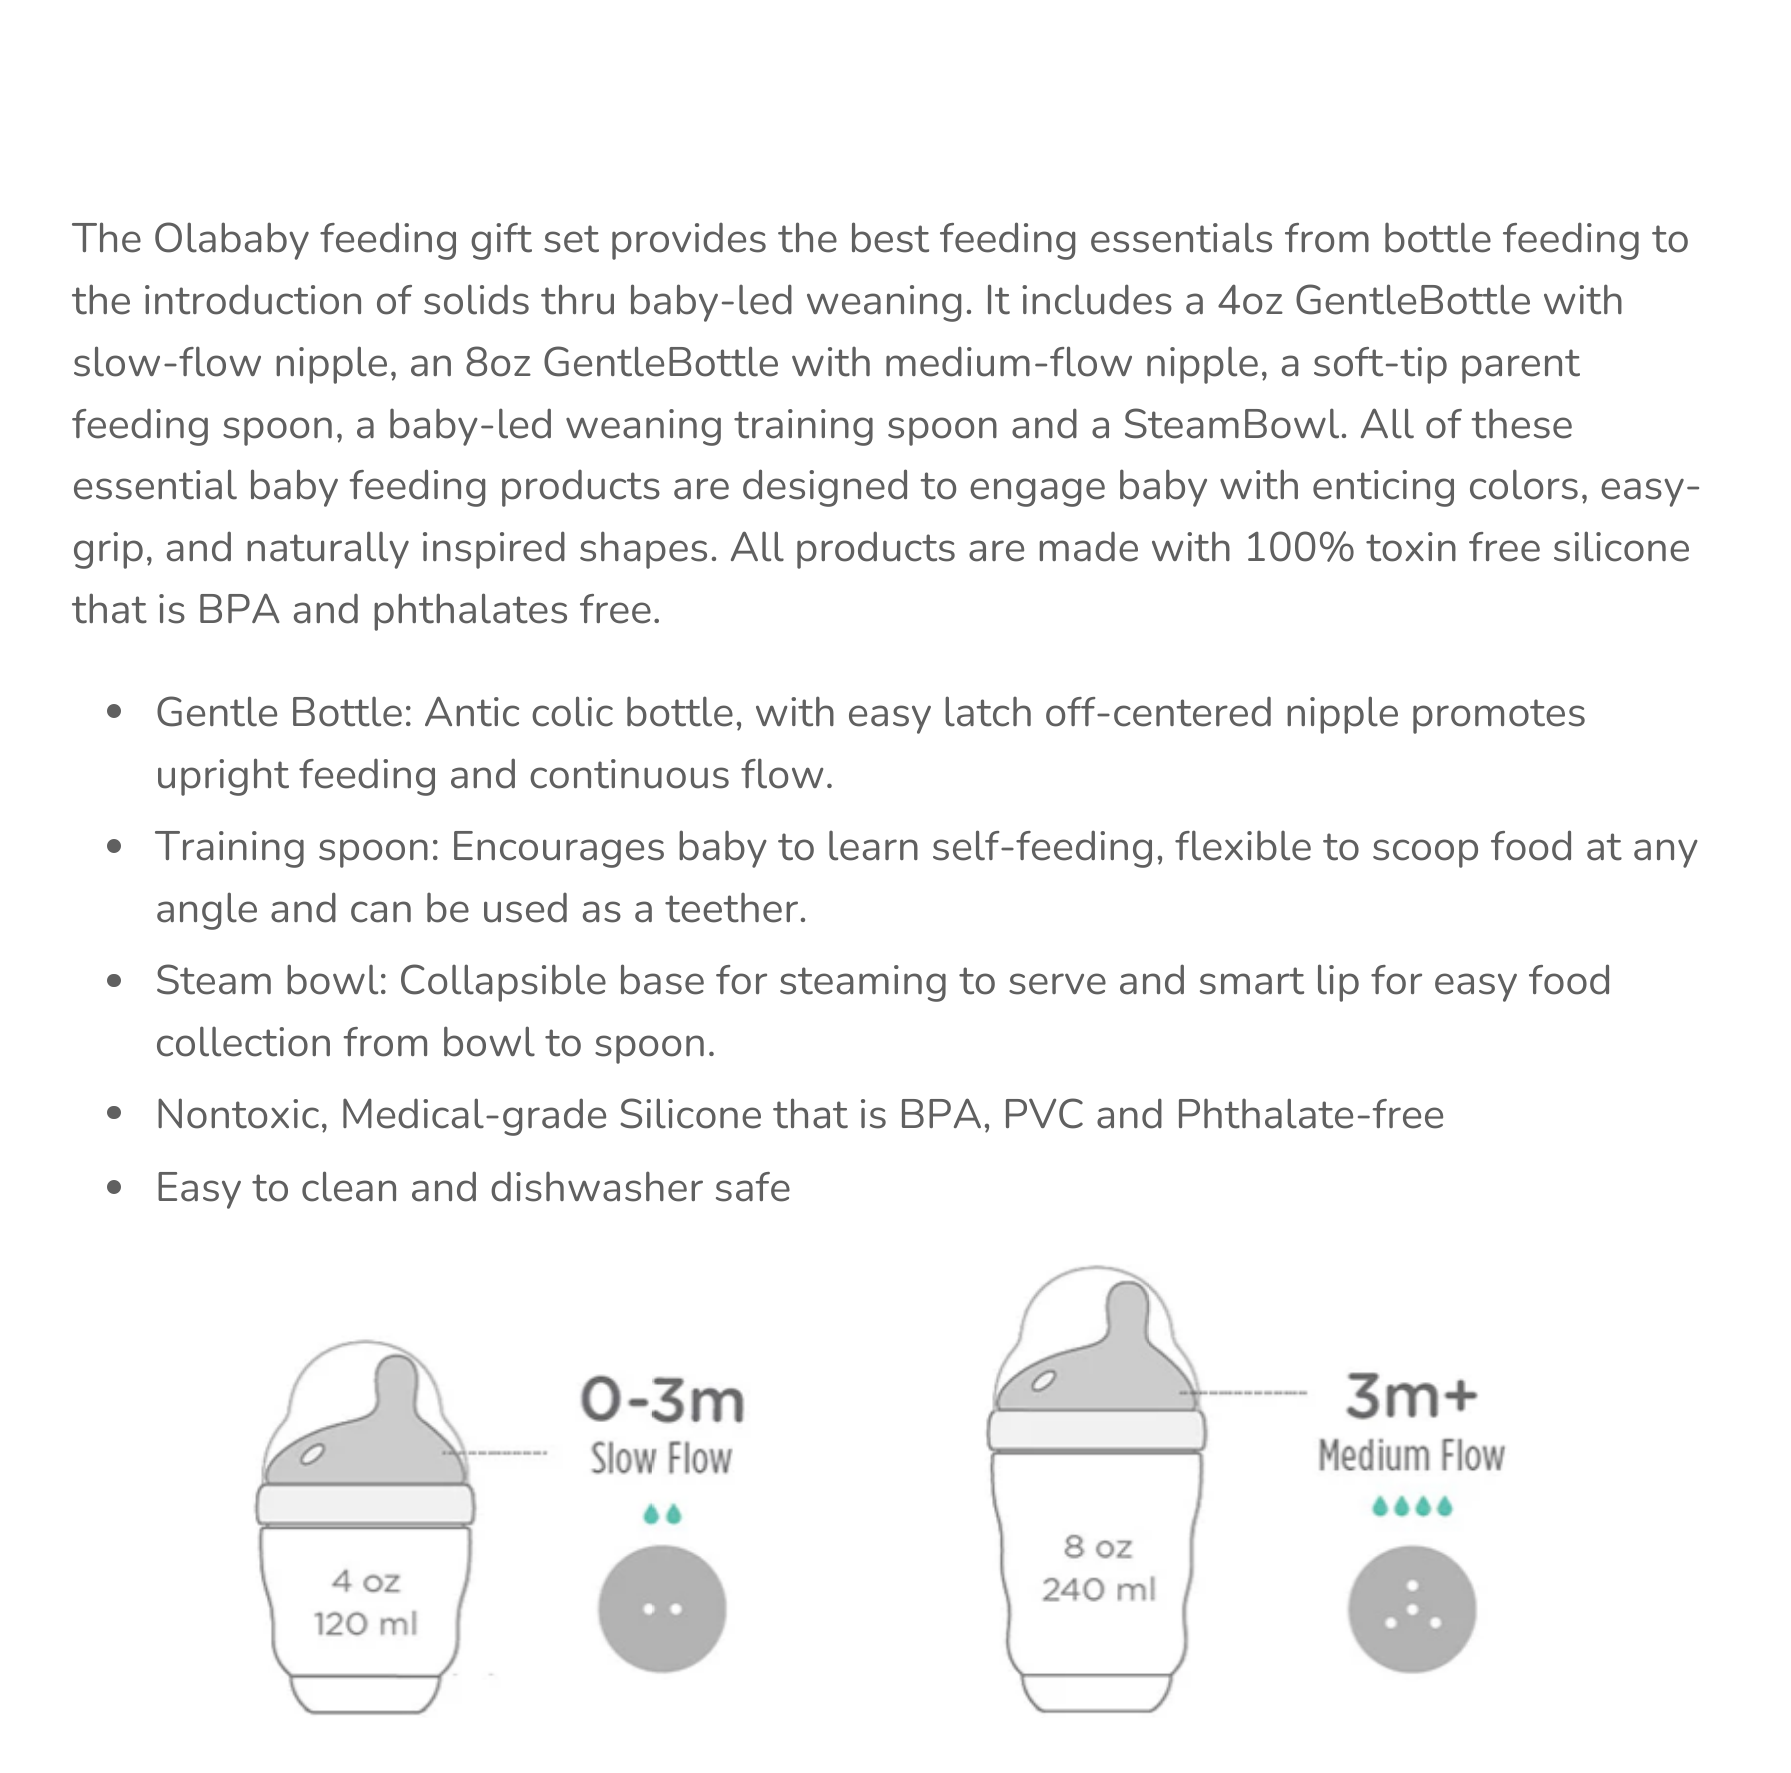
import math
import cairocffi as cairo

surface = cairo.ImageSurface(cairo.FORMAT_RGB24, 1791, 1773)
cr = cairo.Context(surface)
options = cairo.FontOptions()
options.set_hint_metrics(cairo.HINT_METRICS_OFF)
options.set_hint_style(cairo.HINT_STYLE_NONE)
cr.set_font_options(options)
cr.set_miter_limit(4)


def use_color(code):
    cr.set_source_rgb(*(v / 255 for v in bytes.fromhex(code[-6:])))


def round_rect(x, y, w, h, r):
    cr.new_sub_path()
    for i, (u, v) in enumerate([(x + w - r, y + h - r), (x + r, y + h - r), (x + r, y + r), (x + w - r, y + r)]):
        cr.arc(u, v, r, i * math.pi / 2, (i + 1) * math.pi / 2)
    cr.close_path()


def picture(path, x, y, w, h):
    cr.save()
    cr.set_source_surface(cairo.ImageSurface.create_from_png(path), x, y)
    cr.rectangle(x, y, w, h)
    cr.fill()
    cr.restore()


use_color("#ffffff")
cr.paint()
cr.select_font_face("Nunito")
cr.set_font_size(41.25)
use_color("#606060")
cr.move_to(72, 252)
cr.show_text("The Olababy feeding gift set provides the best feeding essentials from bottle feeding to")
cr.move_to(72, 314)
cr.show_text("the introduction of solids thru baby-led weaning. It includes a 4oz GentleBottle with")
cr.move_to(72, 376)
cr.show_text("slow-flow nipple, an 8oz GentleBottle with medium-flow nipple, a soft-tip parent")
cr.move_to(72, 438)
cr.show_text("feeding spoon, a baby-led weaning training spoon and a SteamBowl. All of these")
cr.move_to(72, 499)
cr.show_text("essential baby feeding products are designed to engage baby with enticing colors, easy-")
cr.move_to(72, 561)
cr.show_text("grip, and naturally inspired shapes. All products are made with 100% toxin free silicone")
cr.move_to(72, 623)
cr.show_text("that is BPA and phthalates free.")
cr.new_path()
cr.arc(114, 711, 7, 0, 2 * math.pi)
cr.fill()
cr.move_to(155, 726)
cr.show_text("Gentle Bottle: Antic colic bottle, with easy latch off-centered nipple promotes")
cr.move_to(155, 788)
cr.show_text("upright feeding and continuous flow.")
cr.new_path()
cr.arc(114, 846, 7, 0, 2 * math.pi)
cr.fill()
cr.move_to(155, 860)
cr.show_text("Training spoon: Encourages baby to learn self-feeding, flexible to scoop food at any")
cr.move_to(155, 922)
cr.show_text("angle and can be used as a teether.")
round_rect(107, 974, 14, 13, 6.5)
cr.fill()
cr.move_to(155, 994)
cr.show_text("Steam bowl: Collapsible base for steaming to serve and smart lip for easy food")
cr.move_to(155, 1056)
cr.show_text("collection from bowl to spoon.")
round_rect(107, 1106, 14, 13, 6.5)
cr.fill()
cr.move_to(155, 1128)
cr.show_text("Nontoxic, Medical-grade Silicone that is BPA, PVC and Phthalate-free")
cr.new_path()
cr.arc(114, 1187, 7, 0, 2 * math.pi)
cr.fill()
cr.move_to(155, 1201)
cr.show_text("Easy to clean and dishwasher safe")
picture("img1.png", 252, 1264, 1258, 454)
surface.write_to_png("result.png")
